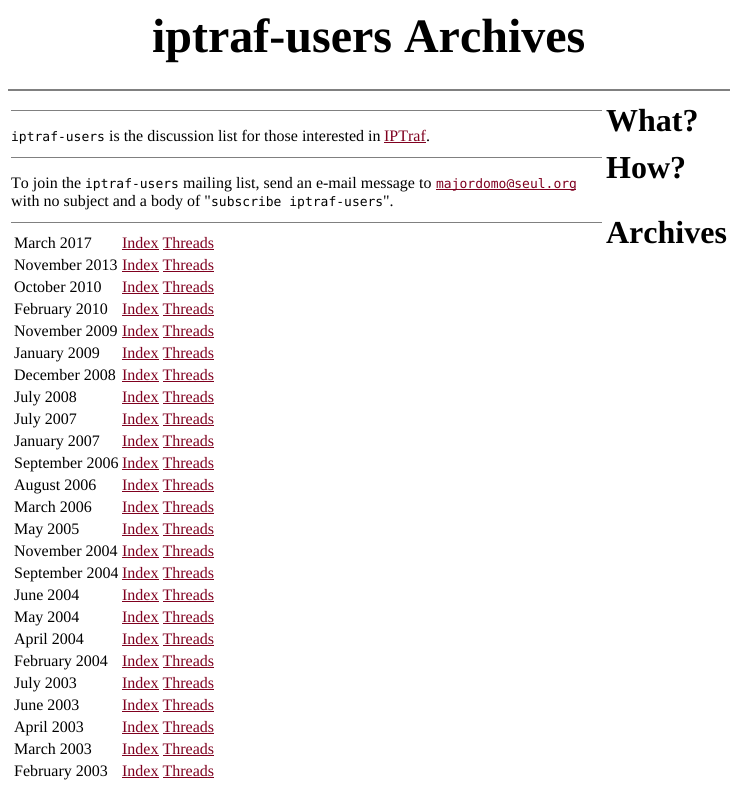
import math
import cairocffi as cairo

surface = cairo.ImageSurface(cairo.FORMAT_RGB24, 738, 785)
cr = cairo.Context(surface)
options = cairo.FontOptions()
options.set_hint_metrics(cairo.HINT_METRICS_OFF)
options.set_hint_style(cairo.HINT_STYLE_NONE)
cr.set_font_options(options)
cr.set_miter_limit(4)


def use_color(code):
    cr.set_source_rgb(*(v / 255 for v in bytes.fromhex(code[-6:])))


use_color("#ffffff")
cr.paint()
cr.select_font_face("Liberation Serif", cairo.FONT_SLANT_NORMAL, cairo.FONT_WEIGHT_BOLD)
cr.set_font_size(48)
use_color("#000000")
cr.move_to(152, 52)
cr.show_text("iptraf-users Archives")
use_color("#808080")
cr.rectangle(8, 89, 722, 2)
cr.fill()
cr.set_font_size(32)
use_color("#000000")
cr.move_to(606, 131)
cr.show_text("What?")
use_color("#808080")
cr.rectangle(11, 110, 591, 1)
cr.fill()
cr.select_font_face("DejaVu Sans Mono")
cr.set_font_size(13)
use_color("#000000")
cr.move_to(11, 141)
cr.show_text("iptraf-users")
cr.select_font_face("Liberation Serif")
cr.set_font_size(16)
cr.move_to(109, 141)
cr.show_text("is the discussion list for those interested in")
use_color("#7f001f")
cr.move_to(384, 141)
cr.show_text("IPTraf")
cr.rectangle(384, 142, 42, 1)
cr.fill()
use_color("#000000")
cr.move_to(426, 141)
cr.show_text(".")
cr.select_font_face("Liberation Serif", cairo.FONT_SLANT_NORMAL, cairo.FONT_WEIGHT_BOLD)
cr.set_font_size(32)
cr.move_to(606, 178)
cr.show_text("How?")
use_color("#808080")
cr.rectangle(11, 157, 591, 1)
cr.fill()
cr.select_font_face("Liberation Serif")
cr.set_font_size(16)
use_color("#000000")
cr.move_to(11, 188)
cr.show_text("To join the")
cr.select_font_face("DejaVu Sans Mono")
cr.set_font_size(13)
cr.move_to(85, 188)
cr.show_text("iptraf-users")
cr.select_font_face("Liberation Serif")
cr.set_font_size(16)
cr.move_to(183, 188)
cr.show_text("mailing list, send an e-mail message to")
use_color("#7f001f")
cr.rectangle(436, 189, 140, 1)
cr.fill()
cr.select_font_face("DejaVu Sans Mono")
cr.set_font_size(13)
cr.move_to(436, 188)
cr.show_text("majordomo@seul.org")
cr.select_font_face("Liberation Serif")
cr.set_font_size(16)
use_color("#000000")
cr.move_to(11, 206)
cr.show_text("with no subject and a body of \"")
cr.select_font_face("DejaVu Sans Mono")
cr.set_font_size(13)
cr.move_to(211, 206)
cr.show_text("subscribe iptraf-users")
cr.select_font_face("Liberation Serif")
cr.set_font_size(16)
cr.move_to(383, 206)
cr.show_text("\".")
cr.select_font_face("Liberation Serif", cairo.FONT_SLANT_NORMAL, cairo.FONT_WEIGHT_BOLD)
cr.set_font_size(32)
cr.move_to(606, 243)
cr.show_text("Archives")
use_color("#808080")
cr.rectangle(11, 222, 591, 1)
cr.fill()
cr.select_font_face("Liberation Serif")
cr.set_font_size(16)
use_color("#000000")
cr.move_to(14, 248)
cr.show_text("March 2017")
use_color("#7f001f")
cr.move_to(122, 248)
cr.show_text("Index Threads")
cr.rectangle(122, 249, 37, 1)
cr.fill()
cr.rectangle(163, 249, 51, 1)
cr.fill()
use_color("#000000")
cr.move_to(14, 270)
cr.show_text("November 2013")
use_color("#7f001f")
cr.move_to(122, 270)
cr.show_text("Index Threads")
cr.rectangle(122, 271, 37, 1)
cr.fill()
cr.rectangle(163, 271, 51, 1)
cr.fill()
use_color("#000000")
cr.move_to(14, 292)
cr.show_text("October 2010")
use_color("#7f001f")
cr.move_to(122, 292)
cr.show_text("Index Threads")
cr.rectangle(122, 293, 37, 1)
cr.fill()
cr.rectangle(163, 293, 51, 1)
cr.fill()
use_color("#000000")
cr.move_to(14, 314)
cr.show_text("February 2010")
use_color("#7f001f")
cr.move_to(122, 314)
cr.show_text("Index Threads")
cr.rectangle(122, 315, 37, 1)
cr.fill()
cr.rectangle(163, 315, 51, 1)
cr.fill()
use_color("#000000")
cr.move_to(14, 336)
cr.show_text("November 2009")
use_color("#7f001f")
cr.move_to(122, 336)
cr.show_text("Index Threads")
cr.rectangle(122, 337, 37, 1)
cr.fill()
cr.rectangle(163, 337, 51, 1)
cr.fill()
use_color("#000000")
cr.move_to(14, 358)
cr.show_text("January 2009")
use_color("#7f001f")
cr.move_to(122, 358)
cr.show_text("Index Threads")
cr.rectangle(122, 359, 37, 1)
cr.fill()
cr.rectangle(163, 359, 51, 1)
cr.fill()
use_color("#000000")
cr.move_to(14, 380)
cr.show_text("December 2008")
use_color("#7f001f")
cr.move_to(122, 380)
cr.show_text("Index Threads")
cr.rectangle(122, 381, 37, 1)
cr.fill()
cr.rectangle(163, 381, 51, 1)
cr.fill()
use_color("#000000")
cr.move_to(14, 402)
cr.show_text("July 2008")
use_color("#7f001f")
cr.move_to(122, 402)
cr.show_text("Index Threads")
cr.rectangle(122, 403, 37, 1)
cr.fill()
cr.rectangle(163, 403, 51, 1)
cr.fill()
use_color("#000000")
cr.move_to(14, 424)
cr.show_text("July 2007")
use_color("#7f001f")
cr.move_to(122, 424)
cr.show_text("Index Threads")
cr.rectangle(122, 425, 37, 1)
cr.fill()
cr.rectangle(163, 425, 51, 1)
cr.fill()
use_color("#000000")
cr.move_to(14, 446)
cr.show_text("January 2007")
use_color("#7f001f")
cr.move_to(122, 446)
cr.show_text("Index Threads")
cr.rectangle(122, 447, 37, 1)
cr.fill()
cr.rectangle(163, 447, 51, 1)
cr.fill()
use_color("#000000")
cr.move_to(14, 468)
cr.show_text("September 2006")
use_color("#7f001f")
cr.move_to(122, 468)
cr.show_text("Index Threads")
cr.rectangle(122, 469, 37, 1)
cr.fill()
cr.rectangle(163, 469, 51, 1)
cr.fill()
use_color("#000000")
cr.move_to(14, 490)
cr.show_text("August 2006")
use_color("#7f001f")
cr.move_to(122, 490)
cr.show_text("Index Threads")
cr.rectangle(122, 491, 37, 1)
cr.fill()
cr.rectangle(163, 491, 51, 1)
cr.fill()
use_color("#000000")
cr.move_to(14, 512)
cr.show_text("March 2006")
use_color("#7f001f")
cr.move_to(122, 512)
cr.show_text("Index Threads")
cr.rectangle(122, 513, 37, 1)
cr.fill()
cr.rectangle(163, 513, 51, 1)
cr.fill()
use_color("#000000")
cr.move_to(14, 534)
cr.show_text("May 2005")
use_color("#7f001f")
cr.move_to(122, 534)
cr.show_text("Index Threads")
cr.rectangle(122, 535, 37, 1)
cr.fill()
cr.rectangle(163, 535, 51, 1)
cr.fill()
use_color("#000000")
cr.move_to(14, 556)
cr.show_text("November 2004")
use_color("#7f001f")
cr.move_to(122, 556)
cr.show_text("Index Threads")
cr.rectangle(122, 557, 37, 1)
cr.fill()
cr.rectangle(163, 557, 51, 1)
cr.fill()
use_color("#000000")
cr.move_to(14, 578)
cr.show_text("September 2004")
use_color("#7f001f")
cr.move_to(122, 578)
cr.show_text("Index Threads")
cr.rectangle(122, 579, 37, 1)
cr.fill()
cr.rectangle(163, 579, 51, 1)
cr.fill()
use_color("#000000")
cr.move_to(14, 600)
cr.show_text("June 2004")
use_color("#7f001f")
cr.move_to(122, 600)
cr.show_text("Index Threads")
cr.rectangle(122, 601, 37, 1)
cr.fill()
cr.rectangle(163, 601, 51, 1)
cr.fill()
use_color("#000000")
cr.move_to(14, 622)
cr.show_text("May 2004")
use_color("#7f001f")
cr.move_to(122, 622)
cr.show_text("Index Threads")
cr.rectangle(122, 623, 37, 1)
cr.fill()
cr.rectangle(163, 623, 51, 1)
cr.fill()
use_color("#000000")
cr.move_to(14, 644)
cr.show_text("April 2004")
use_color("#7f001f")
cr.move_to(122, 644)
cr.show_text("Index Threads")
cr.rectangle(122, 645, 37, 1)
cr.fill()
cr.rectangle(163, 645, 51, 1)
cr.fill()
use_color("#000000")
cr.move_to(14, 666)
cr.show_text("February 2004")
use_color("#7f001f")
cr.move_to(122, 666)
cr.show_text("Index Threads")
cr.rectangle(122, 667, 37, 1)
cr.fill()
cr.rectangle(163, 667, 51, 1)
cr.fill()
use_color("#000000")
cr.move_to(14, 688)
cr.show_text("July 2003")
use_color("#7f001f")
cr.move_to(122, 688)
cr.show_text("Index Threads")
cr.rectangle(122, 689, 37, 1)
cr.fill()
cr.rectangle(163, 689, 51, 1)
cr.fill()
use_color("#000000")
cr.move_to(14, 710)
cr.show_text("June 2003")
use_color("#7f001f")
cr.move_to(122, 710)
cr.show_text("Index Threads")
cr.rectangle(122, 711, 37, 1)
cr.fill()
cr.rectangle(163, 711, 51, 1)
cr.fill()
use_color("#000000")
cr.move_to(14, 732)
cr.show_text("April 2003")
use_color("#7f001f")
cr.move_to(122, 732)
cr.show_text("Index Threads")
cr.rectangle(122, 733, 37, 1)
cr.fill()
cr.rectangle(163, 733, 51, 1)
cr.fill()
use_color("#000000")
cr.move_to(14, 754)
cr.show_text("March 2003")
use_color("#7f001f")
cr.move_to(122, 754)
cr.show_text("Index Threads")
cr.rectangle(122, 755, 37, 1)
cr.fill()
cr.rectangle(163, 755, 51, 1)
cr.fill()
use_color("#000000")
cr.move_to(14, 776)
cr.show_text("February 2003")
use_color("#7f001f")
cr.move_to(122, 776)
cr.show_text("Index Threads")
cr.rectangle(122, 777, 37, 1)
cr.fill()
cr.rectangle(163, 777, 51, 1)
cr.fill()
surface.write_to_png("result.png")
